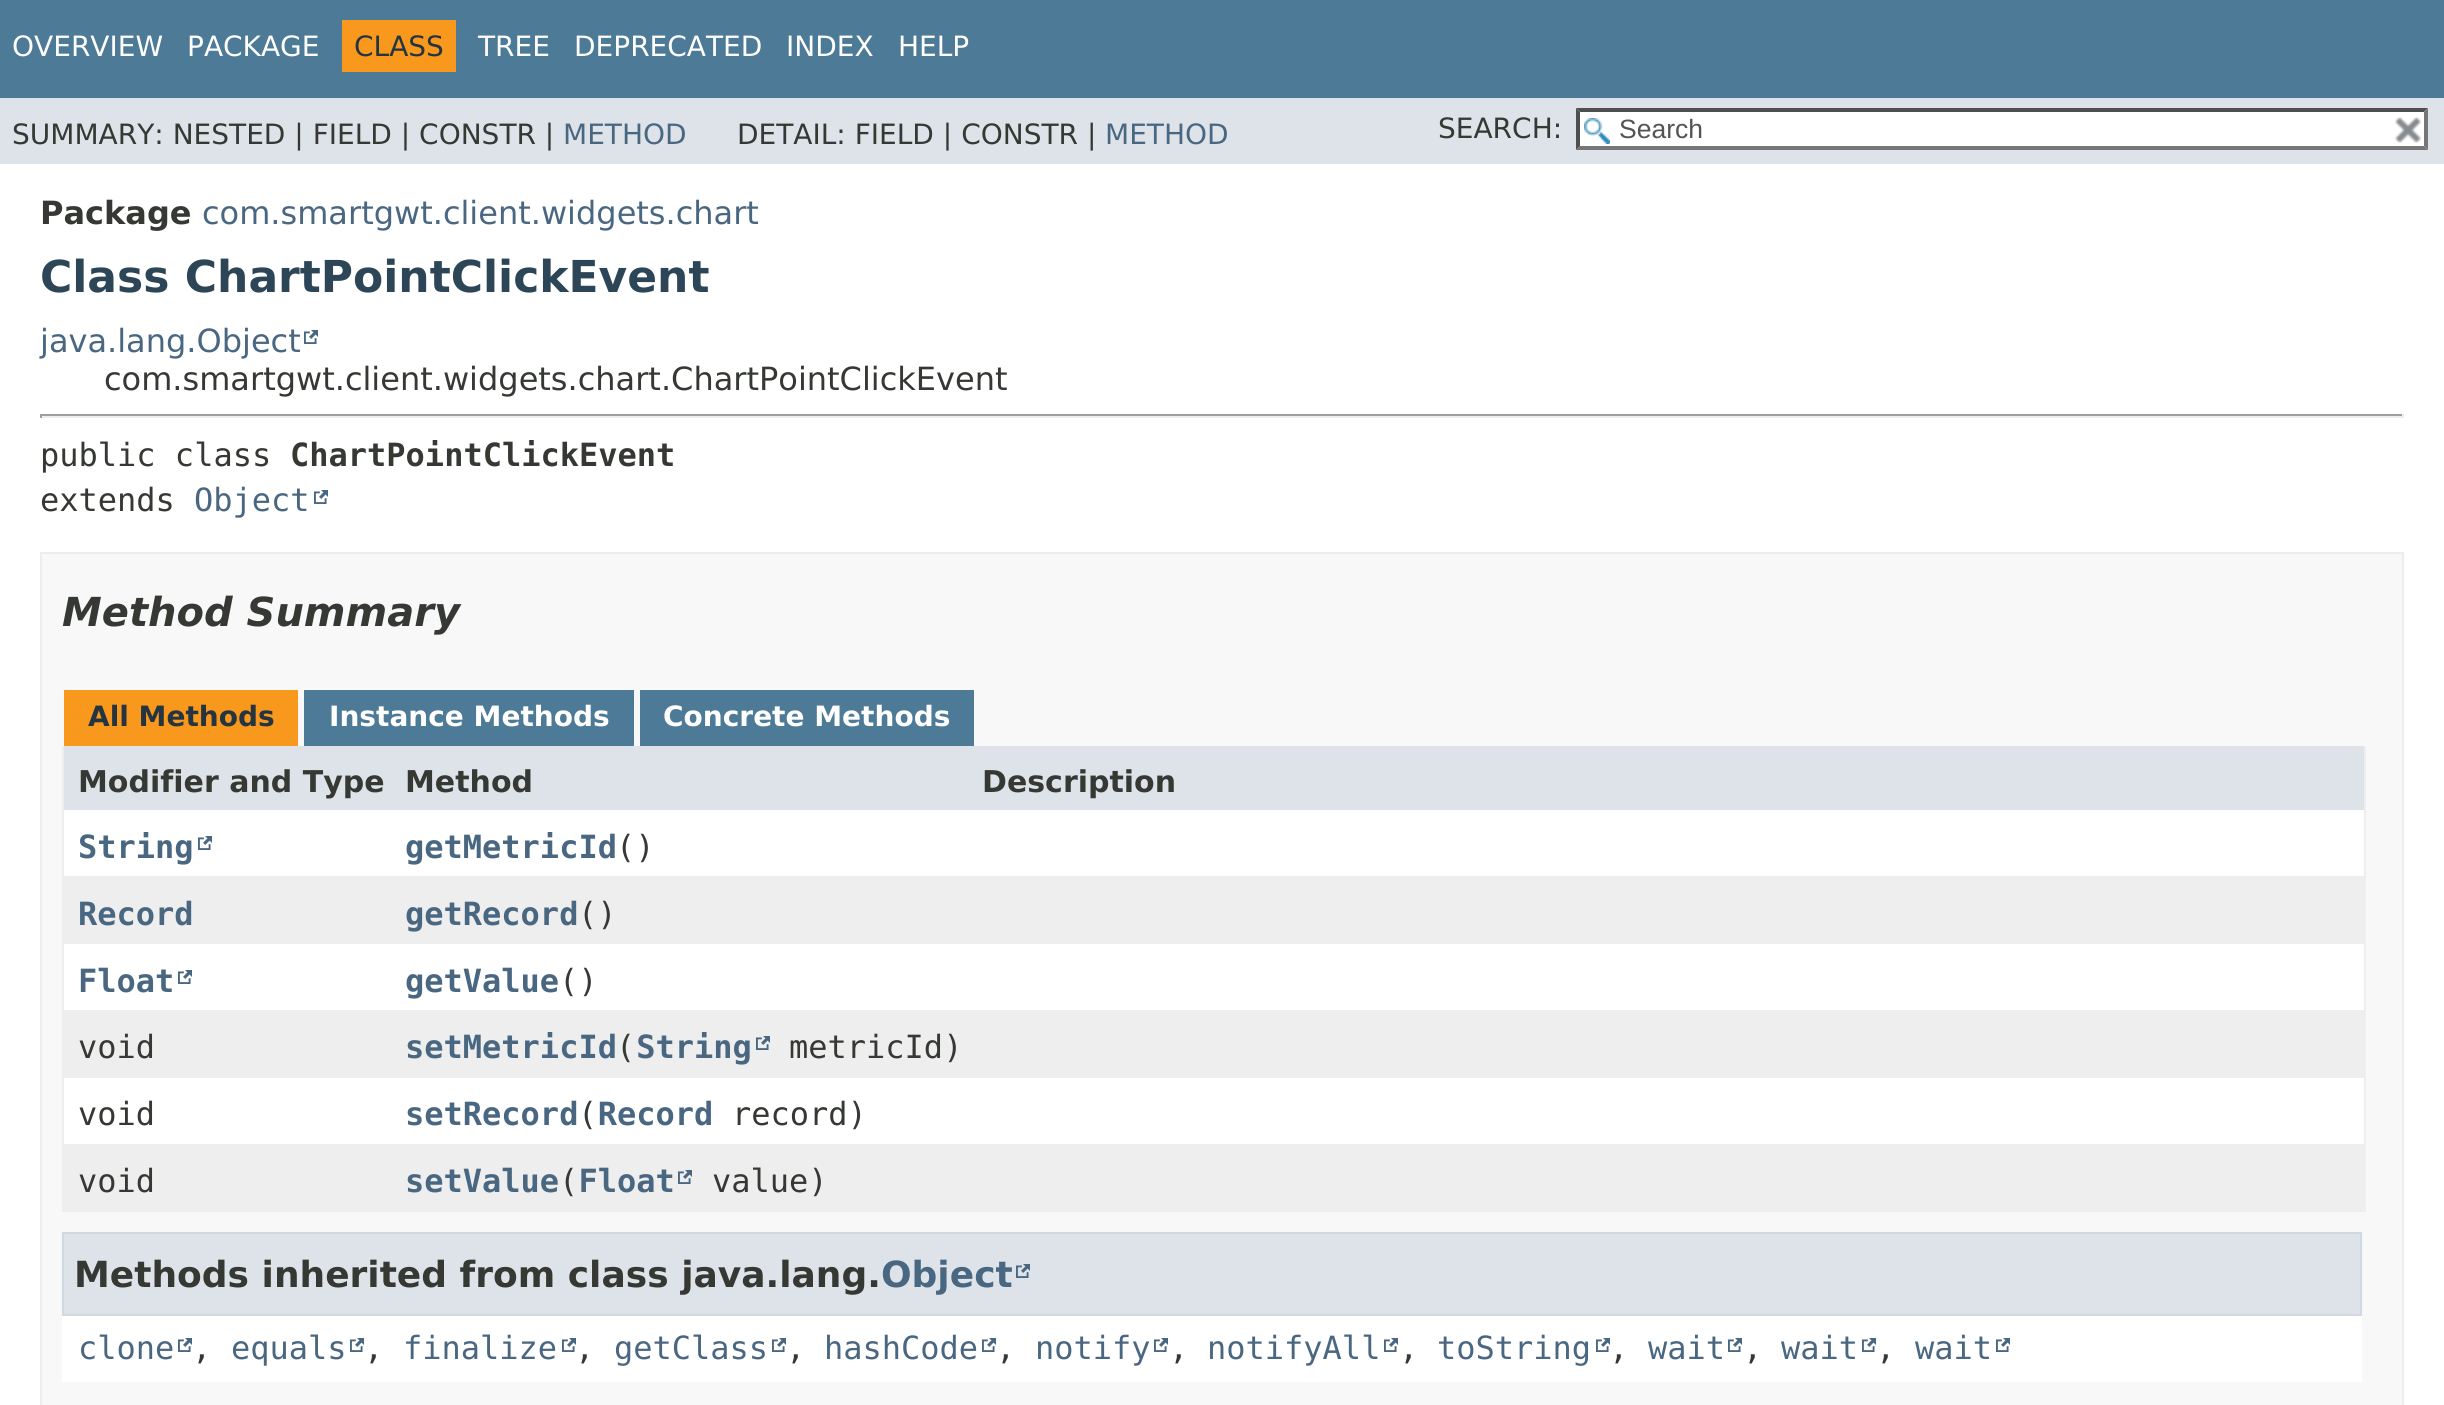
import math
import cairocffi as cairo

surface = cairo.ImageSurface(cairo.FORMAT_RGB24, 2444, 1405)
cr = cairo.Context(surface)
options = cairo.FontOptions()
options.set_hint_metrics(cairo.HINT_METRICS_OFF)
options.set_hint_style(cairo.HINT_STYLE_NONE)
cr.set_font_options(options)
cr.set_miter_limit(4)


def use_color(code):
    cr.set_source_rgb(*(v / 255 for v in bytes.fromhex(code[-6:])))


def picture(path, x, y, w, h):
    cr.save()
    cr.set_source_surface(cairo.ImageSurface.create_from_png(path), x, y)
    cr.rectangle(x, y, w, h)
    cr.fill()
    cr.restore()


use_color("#ffffff")
cr.paint()
use_color("#4d7a97")
cr.rectangle(0, 0, 2444, 98)
cr.fill()
cr.select_font_face("DejaVu Sans")
cr.set_font_size(28)
use_color("#ffffff")
cr.move_to(12, 56)
cr.show_text("OVERVIEW")
cr.move_to(187, 56)
cr.show_text("PACKAGE")
use_color("#f8981d")
cr.rectangle(342, 20, 114, 52)
cr.fill()
use_color("#253441")
cr.move_to(354, 56)
cr.show_text("CLASS")
use_color("#ffffff")
cr.move_to(478, 56)
cr.show_text("TREE")
cr.move_to(574, 56)
cr.show_text("DEPRECATED")
cr.move_to(786, 56)
cr.show_text("INDEX")
cr.move_to(898, 56)
cr.show_text("HELP")
use_color("#dee3e9")
cr.rectangle(0, 98, 2444, 66)
cr.fill()
use_color("#353833")
cr.move_to(12, 144)
cr.show_text("SUMMARY: NESTED | FIELD | CONSTR |")
use_color("#4a6782")
cr.move_to(563, 144)
cr.show_text("METHOD")
use_color("#353833")
cr.move_to(737, 144)
cr.show_text("DETAIL: FIELD | CONSTR |")
use_color("#4a6782")
cr.move_to(1105, 144)
cr.show_text("METHOD")
use_color("#353833")
cr.move_to(1438, 138)
cr.show_text("SEARCH:")
use_color("#ffffff")
cr.rectangle(1576, 108, 852, 42)
cr.fill()
picture("img1.png", 1584, 118, 26, 26)
use_color("#4f4f4f")
cr.new_path()
cr.move_to(1576, 108)
cr.line_to(2428, 108)
cr.line_to(2424, 112)
cr.line_to(1580, 112)
cr.close_path()
cr.fill()
use_color("#767676")
cr.new_path()
cr.move_to(2428, 108)
cr.line_to(2428, 150)
cr.line_to(2424, 146)
cr.line_to(2424, 112)
cr.close_path()
cr.fill()
cr.new_path()
cr.move_to(2428, 150)
cr.line_to(1576, 150)
cr.line_to(1580, 146)
cr.line_to(2424, 146)
cr.close_path()
cr.fill()
use_color("#4f4f4f")
cr.new_path()
cr.move_to(1576, 150)
cr.line_to(1576, 108)
cr.line_to(1580, 112)
cr.line_to(1580, 146)
cr.close_path()
cr.fill()
cr.select_font_face("Liberation Sans")
cr.set_font_size(26.5)
use_color("#545454")
cr.move_to(1619, 138)
cr.show_text("Search")
picture("img2.png", 2394, 116, 27, 27)
cr.select_font_face("DejaVu Sans", cairo.FONT_SLANT_NORMAL, cairo.FONT_WEIGHT_BOLD)
cr.set_font_size(32)
use_color("#353833")
cr.move_to(40, 224)
cr.show_text("Package")
cr.select_font_face("DejaVu Sans")
use_color("#4a6782")
cr.move_to(202, 224)
cr.show_text("com.smartgwt.client.widgets.chart")
cr.select_font_face("DejaVu Sans", cairo.FONT_SLANT_NORMAL, cairo.FONT_WEIGHT_BOLD)
cr.set_font_size(44)
use_color("#2c4557")
cr.move_to(40, 292)
cr.show_text("Class ChartPointClickEvent")
cr.select_font_face("DejaVu Sans")
cr.set_font_size(32)
use_color("#4a6782")
cr.move_to(40, 352)
cr.show_text("java.lang.Object")
picture("img3.png", 304, 330, 14, 14)
use_color("#353833")
cr.move_to(104, 390)
cr.show_text("com.smartgwt.client.widgets.chart.ChartPointClickEvent")
use_color("#9f9f9f")
cr.rectangle(40, 414, 2364, 2)
cr.fill()
use_color("#eeeeee")
cr.rectangle(2402, 414, 2, 4)
cr.fill()
cr.rectangle(40, 416, 2364, 2)
cr.fill()
use_color("#9f9f9f")
cr.rectangle(40, 414, 2, 4)
cr.fill()
cr.select_font_face("DejaVu Sans Mono")
use_color("#353833")
cr.move_to(40, 466)
cr.show_text("public class")
cr.select_font_face("DejaVu Sans Mono", cairo.FONT_SLANT_NORMAL, cairo.FONT_WEIGHT_BOLD)
cr.move_to(290, 466)
cr.show_text("ChartPointClickEvent")
cr.select_font_face("DejaVu Sans Mono")
cr.move_to(40, 511)
cr.show_text("extends")
use_color("#4a6782")
cr.move_to(194, 511)
cr.show_text("Object")
picture("img3.png", 314, 490, 14, 14)
use_color("#f8f8f8")
cr.rectangle(41, 553, 2362, 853)
cr.fill_preserve()
use_color("#ededed")
cr.stroke()
cr.select_font_face("DejaVu Sans", cairo.FONT_SLANT_ITALIC, cairo.FONT_WEIGHT_BOLD)
cr.set_font_size(40)
use_color("#353833")
cr.move_to(62, 626)
cr.show_text("Method Summary")
use_color("#f8981d")
cr.rectangle(64, 690, 234, 56)
cr.fill()
cr.select_font_face("DejaVu Sans", cairo.FONT_SLANT_NORMAL, cairo.FONT_WEIGHT_BOLD)
cr.set_font_size(28)
use_color("#253441")
cr.move_to(88, 726)
cr.show_text("All Methods")
use_color("#4d7a97")
cr.rectangle(304, 690, 330, 56)
cr.fill()
use_color("#ffffff")
cr.move_to(329, 726)
cr.show_text("Instance Methods")
use_color("#4d7a97")
cr.rectangle(640, 690, 334, 56)
cr.fill()
use_color("#ffffff")
cr.move_to(663, 726)
cr.show_text("Concrete Methods")
use_color("#eeeeee")
cr.rectangle(2364, 746, 2, 466)
cr.fill()
cr.rectangle(62, 1210, 2304, 2)
cr.fill()
cr.rectangle(62, 746, 2, 466)
cr.fill()
use_color("#dee3e9")
cr.rectangle(64, 746, 904, 64)
cr.fill()
cr.set_font_size(30)
use_color("#353833")
cr.move_to(78, 792)
cr.show_text("Modifier and Type")
cr.move_to(405, 792)
cr.show_text("Method")
use_color("#dee3e9")
cr.rectangle(968, 746, 1396, 64)
cr.fill()
use_color("#353833")
cr.move_to(982, 792)
cr.show_text("Description")
use_color("#ffffff")
cr.rectangle(64, 810, 904, 66)
cr.fill()
cr.select_font_face("DejaVu Sans Mono", cairo.FONT_SLANT_NORMAL, cairo.FONT_WEIGHT_BOLD)
cr.set_font_size(32)
use_color("#4a6782")
cr.move_to(78, 858)
cr.show_text("String")
picture("img3.png", 198, 836, 14, 14)
cr.move_to(405, 858)
cr.show_text("getMetricId")
cr.select_font_face("DejaVu Sans Mono")
use_color("#353833")
cr.move_to(616, 858)
cr.show_text("()")
use_color("#ffffff")
cr.rectangle(968, 810, 1396, 66)
cr.fill()
use_color("#eeeeef")
cr.rectangle(64, 876, 904, 68)
cr.fill()
cr.select_font_face("DejaVu Sans Mono", cairo.FONT_SLANT_NORMAL, cairo.FONT_WEIGHT_BOLD)
use_color("#4a6782")
cr.move_to(78, 925)
cr.show_text("Record")
cr.move_to(405, 925)
cr.show_text("getRecord")
cr.select_font_face("DejaVu Sans Mono")
use_color("#353833")
cr.move_to(578, 925)
cr.show_text("()")
use_color("#eeeeef")
cr.rectangle(968, 876, 1396, 68)
cr.fill()
use_color("#ffffff")
cr.rectangle(64, 944, 904, 66)
cr.fill()
cr.select_font_face("DejaVu Sans Mono", cairo.FONT_SLANT_NORMAL, cairo.FONT_WEIGHT_BOLD)
use_color("#4a6782")
cr.move_to(78, 992)
cr.show_text("Float")
picture("img3.png", 178, 970, 14, 14)
cr.move_to(405, 992)
cr.show_text("getValue")
cr.select_font_face("DejaVu Sans Mono")
use_color("#353833")
cr.move_to(559, 992)
cr.show_text("()")
use_color("#ffffff")
cr.rectangle(968, 944, 1396, 66)
cr.fill()
use_color("#eeeeef")
cr.rectangle(64, 1010, 904, 68)
cr.fill()
use_color("#353833")
cr.move_to(78, 1058)
cr.show_text("void")
cr.select_font_face("DejaVu Sans Mono", cairo.FONT_SLANT_NORMAL, cairo.FONT_WEIGHT_BOLD)
use_color("#4a6782")
cr.move_to(405, 1058)
cr.show_text("setMetricId String")
cr.select_font_face("DejaVu Sans Mono")
use_color("#353833")
cr.move_to(616, 1058)
cr.show_text("(")
picture("img4.png", 756, 1036, 14, 14)
cr.move_to(789, 1058)
cr.show_text("metricId)")
use_color("#eeeeef")
cr.rectangle(968, 1010, 1396, 68)
cr.fill()
use_color("#ffffff")
cr.rectangle(64, 1078, 904, 66)
cr.fill()
use_color("#353833")
cr.move_to(78, 1125)
cr.show_text("void")
cr.select_font_face("DejaVu Sans Mono", cairo.FONT_SLANT_NORMAL, cairo.FONT_WEIGHT_BOLD)
use_color("#4a6782")
cr.move_to(405, 1125)
cr.show_text("setRecord Record")
cr.select_font_face("DejaVu Sans Mono")
use_color("#353833")
cr.move_to(578, 1125)
cr.show_text("(")
cr.move_to(732, 1125)
cr.show_text("record)")
use_color("#ffffff")
cr.rectangle(968, 1078, 1396, 66)
cr.fill()
use_color("#eeeeef")
cr.rectangle(64, 1144, 904, 66)
cr.fill()
use_color("#353833")
cr.move_to(78, 1192)
cr.show_text("void")
cr.select_font_face("DejaVu Sans Mono", cairo.FONT_SLANT_NORMAL, cairo.FONT_WEIGHT_BOLD)
use_color("#4a6782")
cr.move_to(405, 1192)
cr.show_text("setValue Float")
cr.select_font_face("DejaVu Sans Mono")
use_color("#353833")
cr.move_to(559, 1192)
cr.show_text("(")
picture("img4.png", 678, 1170, 14, 14)
cr.move_to(712, 1192)
cr.show_text("value)")
use_color("#eeeeef")
cr.rectangle(968, 1144, 1396, 66)
cr.fill()
use_color("#ffffff")
cr.rectangle(62, 1316, 2300, 66)
cr.fill()
use_color("#dee3e9")
cr.rectangle(63, 1233, 2298, 82)
cr.fill_preserve()
use_color("#d0d9e0")
cr.stroke()
cr.select_font_face("DejaVu Sans", cairo.FONT_SLANT_NORMAL, cairo.FONT_WEIGHT_BOLD)
cr.set_font_size(36)
use_color("#353833")
cr.move_to(74, 1287)
cr.show_text("Methods inherited from class java.lang.")
use_color("#4a6782")
cr.move_to(881, 1287)
cr.show_text("Object")
picture("img5.png", 1016, 1264, 14, 14)
cr.select_font_face("DejaVu Sans Mono")
cr.set_font_size(32)
cr.move_to(78, 1359)
cr.show_text("clone")
picture("img3.png", 178, 1338, 14, 14)
use_color("#353833")
cr.move_to(192, 1359)
cr.show_text(",")
use_color("#4a6782")
cr.move_to(231, 1359)
cr.show_text("equals")
picture("img3.png", 350, 1338, 14, 14)
use_color("#353833")
cr.move_to(364, 1359)
cr.show_text(",")
use_color("#4a6782")
cr.move_to(403, 1359)
cr.show_text("finalize")
picture("img3.png", 562, 1338, 14, 14)
use_color("#353833")
cr.move_to(575, 1359)
cr.show_text(",")
use_color("#4a6782")
cr.move_to(614, 1359)
cr.show_text("getClass")
picture("img3.png", 772, 1338, 14, 14)
use_color("#353833")
cr.move_to(786, 1359)
cr.show_text(",")
use_color("#4a6782")
cr.move_to(824, 1359)
cr.show_text("hashCode")
picture("img3.png", 982, 1338, 14, 14)
use_color("#353833")
cr.move_to(996, 1359)
cr.show_text(",")
use_color("#4a6782")
cr.move_to(1035, 1359)
cr.show_text("notify")
picture("img3.png", 1154, 1338, 14, 14)
use_color("#353833")
cr.move_to(1169, 1359)
cr.show_text(",")
use_color("#4a6782")
cr.move_to(1207, 1359)
cr.show_text("notifyAll")
picture("img3.png", 1384, 1338, 14, 14)
use_color("#353833")
cr.move_to(1399, 1359)
cr.show_text(",")
use_color("#4a6782")
cr.move_to(1437, 1359)
cr.show_text("toString")
picture("img3.png", 1596, 1338, 14, 14)
use_color("#353833")
cr.move_to(1609, 1359)
cr.show_text(",")
use_color("#4a6782")
cr.move_to(1648, 1359)
cr.show_text("wait")
picture("img3.png", 1728, 1338, 14, 14)
use_color("#353833")
cr.move_to(1743, 1359)
cr.show_text(",")
use_color("#4a6782")
cr.move_to(1781, 1359)
cr.show_text("wait")
picture("img3.png", 1862, 1338, 14, 14)
use_color("#353833")
cr.move_to(1876, 1359)
cr.show_text(",")
use_color("#4a6782")
cr.move_to(1915, 1359)
cr.show_text("wait")
picture("img3.png", 1996, 1338, 14, 14)
surface.write_to_png("result.png")
